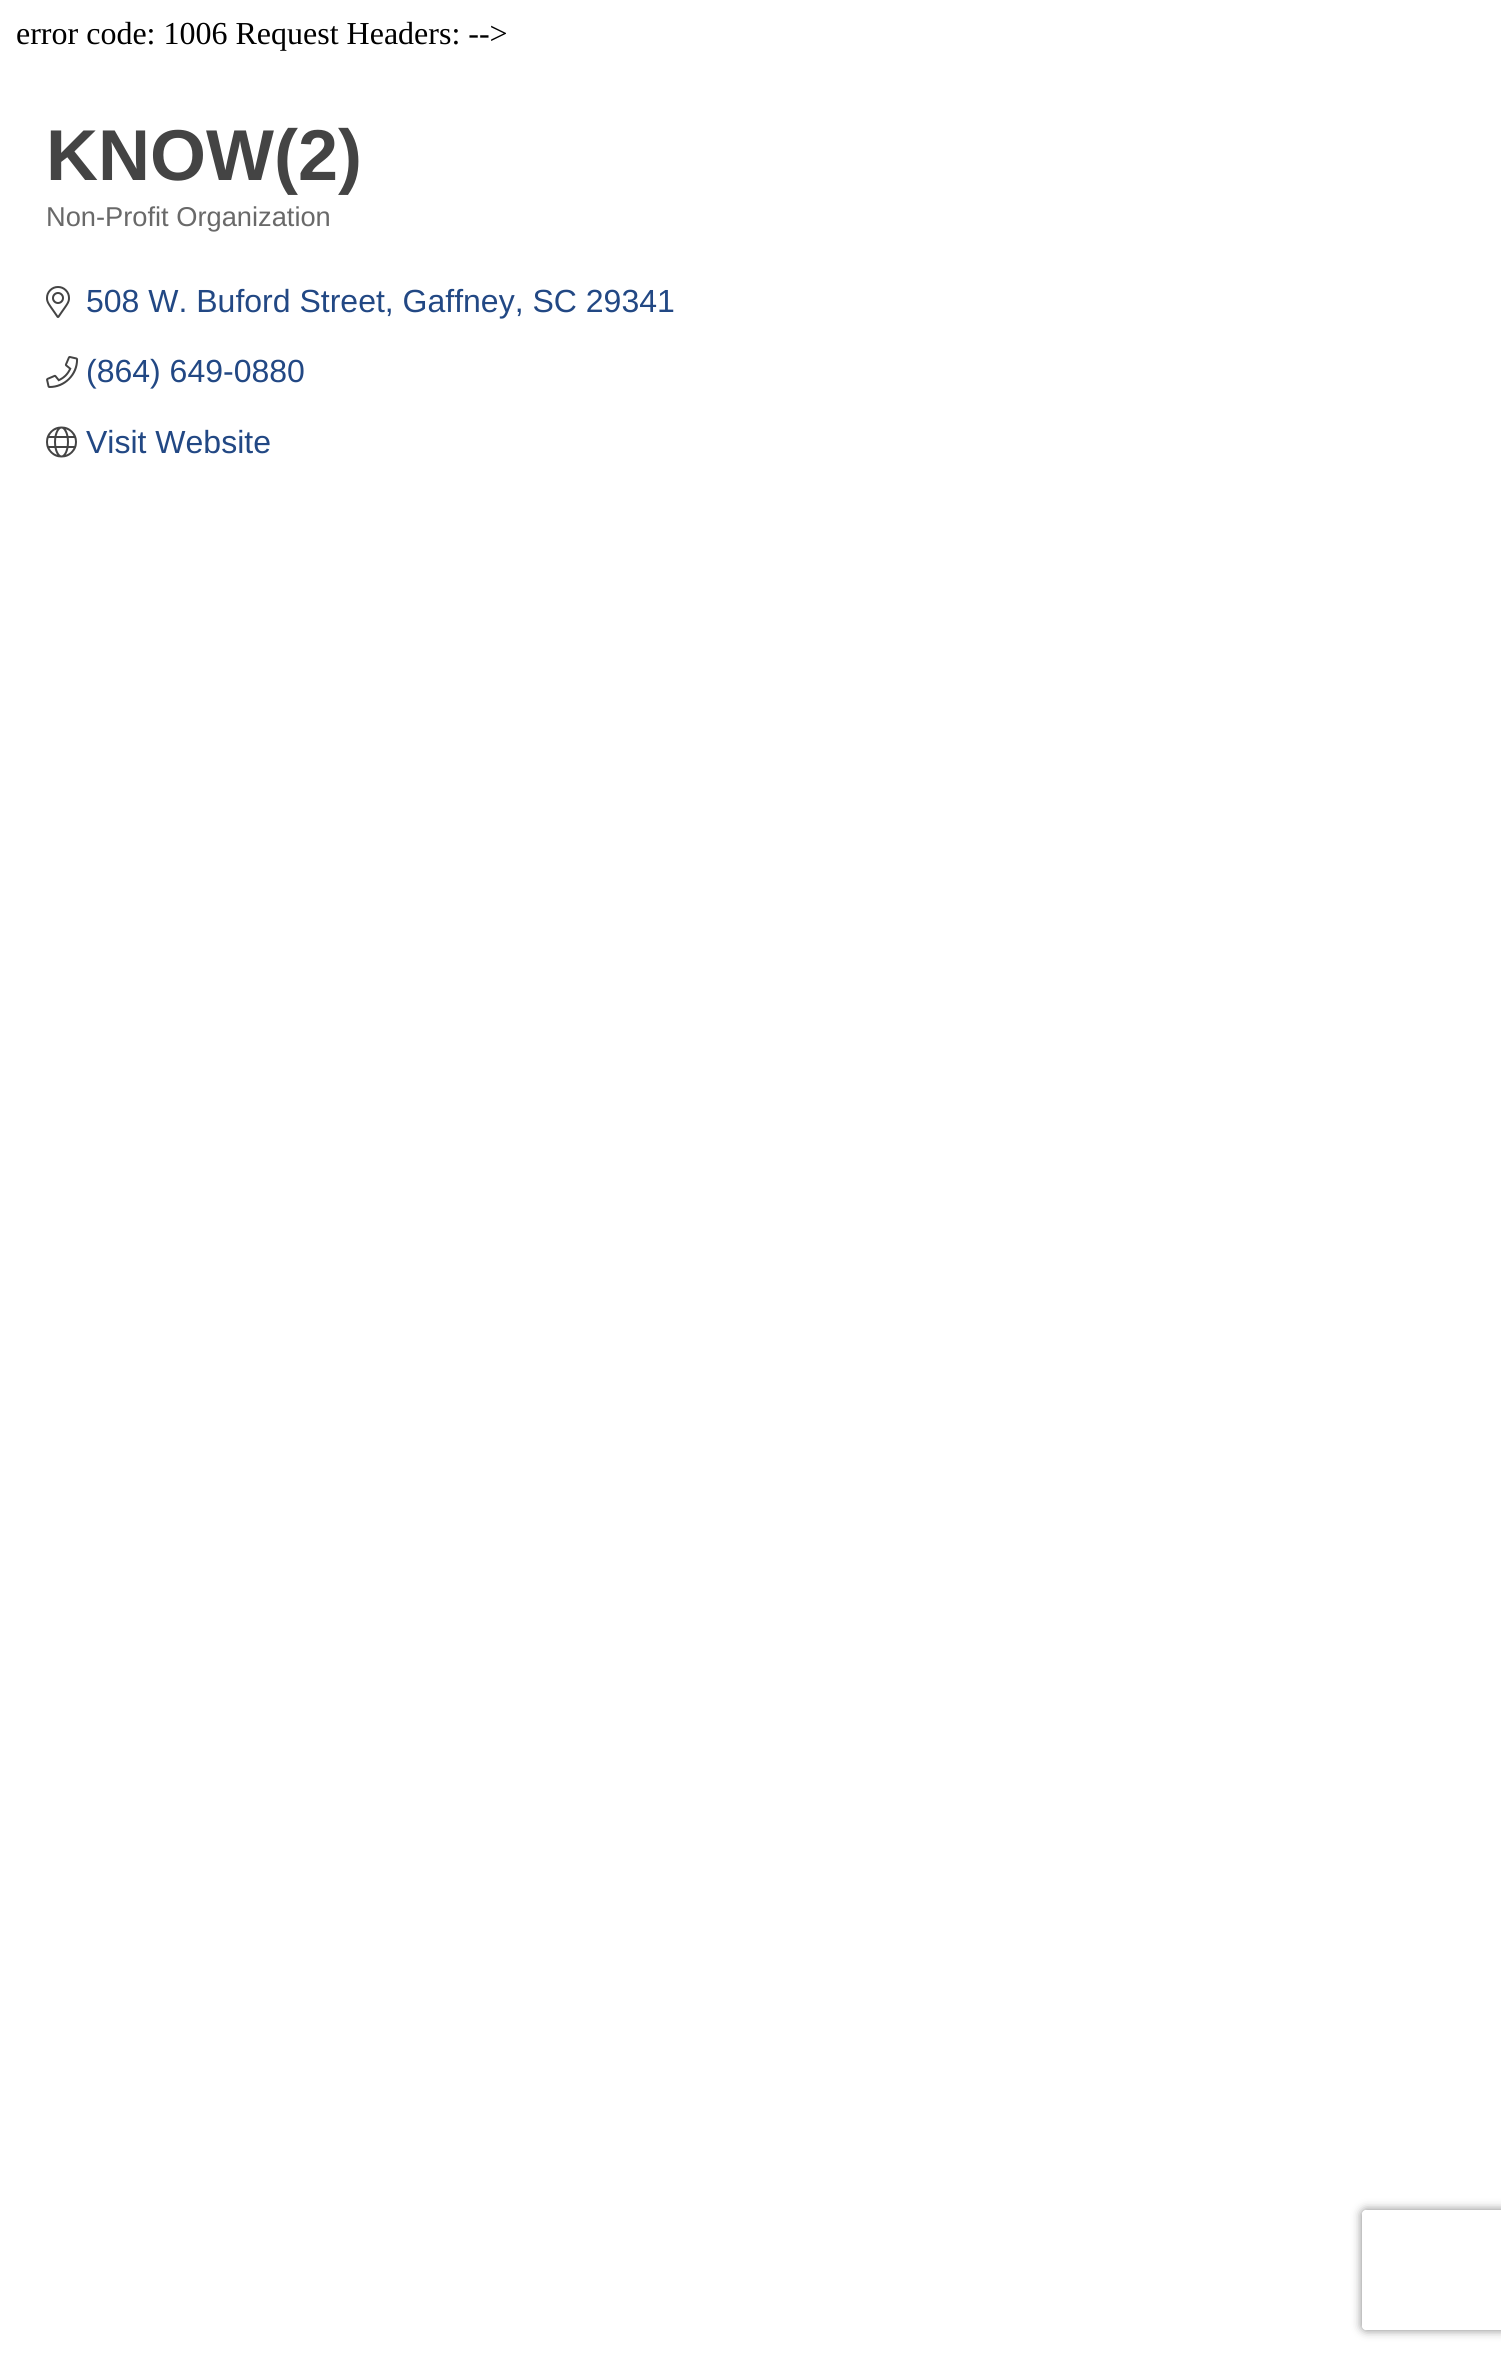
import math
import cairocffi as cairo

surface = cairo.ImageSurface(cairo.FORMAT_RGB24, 1501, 2357)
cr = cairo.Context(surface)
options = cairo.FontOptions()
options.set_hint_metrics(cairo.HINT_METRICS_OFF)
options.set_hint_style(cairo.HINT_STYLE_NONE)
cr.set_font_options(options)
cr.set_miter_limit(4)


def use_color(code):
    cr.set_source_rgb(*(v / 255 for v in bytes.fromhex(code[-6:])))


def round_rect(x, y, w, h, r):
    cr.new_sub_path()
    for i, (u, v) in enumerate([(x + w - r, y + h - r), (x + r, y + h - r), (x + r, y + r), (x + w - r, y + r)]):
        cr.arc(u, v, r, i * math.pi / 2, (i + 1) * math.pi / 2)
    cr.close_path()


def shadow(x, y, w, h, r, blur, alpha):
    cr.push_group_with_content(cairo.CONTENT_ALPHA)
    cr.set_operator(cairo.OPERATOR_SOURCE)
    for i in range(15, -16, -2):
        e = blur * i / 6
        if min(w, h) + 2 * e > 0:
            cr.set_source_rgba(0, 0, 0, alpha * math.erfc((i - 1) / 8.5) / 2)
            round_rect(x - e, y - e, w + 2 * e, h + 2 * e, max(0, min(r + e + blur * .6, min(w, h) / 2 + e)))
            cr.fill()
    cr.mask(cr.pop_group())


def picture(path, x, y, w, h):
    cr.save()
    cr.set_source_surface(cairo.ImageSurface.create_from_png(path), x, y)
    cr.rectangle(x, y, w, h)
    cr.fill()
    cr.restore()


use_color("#ffffff")
cr.paint()
cr.select_font_face("Liberation Serif")
cr.set_font_size(32)
use_color("#000000")
cr.move_to(16, 44)
cr.show_text("error code: 1006 Request Headers: -->")
cr.select_font_face("Liberation Sans", cairo.FONT_SLANT_NORMAL, cairo.FONT_WEIGHT_BOLD)
cr.set_font_size(72)
use_color("#444444")
cr.move_to(46, 180)
cr.show_text("KNOW(2)")
cr.select_font_face("Liberation Sans")
cr.set_font_size(27.25)
use_color("#696969")
cr.move_to(46, 226)
cr.show_text("Non-Profit Organization")
picture("img1.png", 46, 286, 24, 32)
cr.set_font_size(32)
use_color("#224884")
cr.move_to(86, 312)
cr.show_text("508 W. Buford Street, Gaffney, SC 29341")
picture("img2.png", 46, 356, 33, 32)
cr.move_to(86, 382)
cr.show_text("(864) 649-0880")
picture("img3.png", 46, 426, 31, 32)
cr.move_to(86, 453)
cr.show_text("Visit Website")
cr.save()
cr.set_fill_rule(cairo.FILL_RULE_EVEN_ODD)
cr.new_path()
cr.move_to(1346, 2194)
cr.line_to(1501, 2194)
cr.line_to(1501, 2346)
cr.line_to(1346, 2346)
cr.close_path()
cr.move_to(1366, 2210)
cr.line_to(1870, 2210)
cr.curve_to(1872, 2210, 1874, 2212, 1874, 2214)
cr.line_to(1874, 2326)
cr.curve_to(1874, 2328, 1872, 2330, 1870, 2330)
cr.line_to(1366, 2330)
cr.curve_to(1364, 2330, 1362, 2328, 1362, 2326)
cr.line_to(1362, 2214)
cr.curve_to(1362, 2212, 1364, 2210, 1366, 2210)
cr.close_path()
cr.clip()
use_color("#808080")
shadow(1362, 2210, 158, 120, 4, 5, 1)
cr.restore()
surface.write_to_png("result.png")
